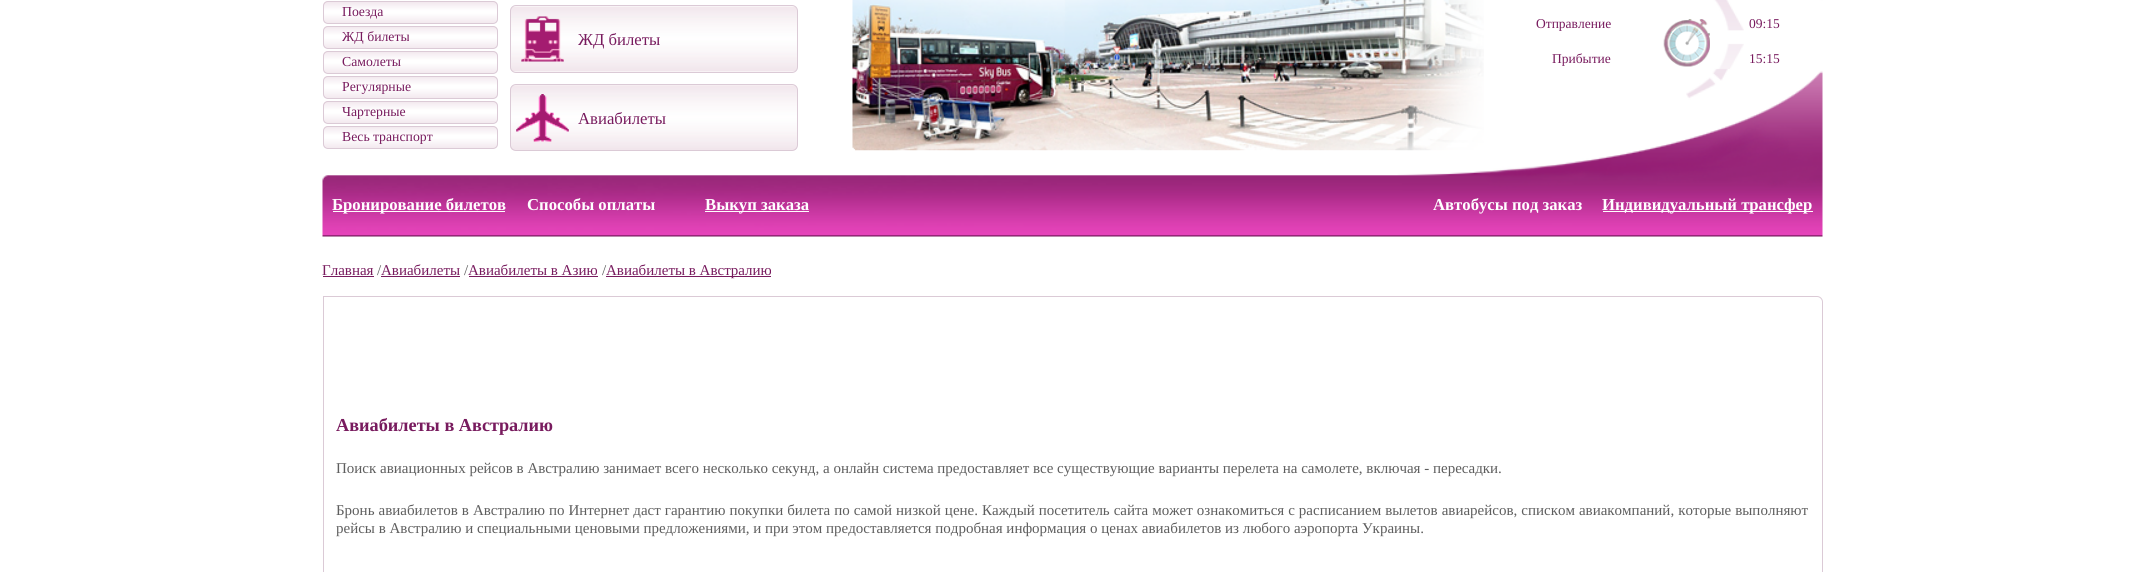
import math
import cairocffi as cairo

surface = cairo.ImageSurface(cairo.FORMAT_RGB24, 2143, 572)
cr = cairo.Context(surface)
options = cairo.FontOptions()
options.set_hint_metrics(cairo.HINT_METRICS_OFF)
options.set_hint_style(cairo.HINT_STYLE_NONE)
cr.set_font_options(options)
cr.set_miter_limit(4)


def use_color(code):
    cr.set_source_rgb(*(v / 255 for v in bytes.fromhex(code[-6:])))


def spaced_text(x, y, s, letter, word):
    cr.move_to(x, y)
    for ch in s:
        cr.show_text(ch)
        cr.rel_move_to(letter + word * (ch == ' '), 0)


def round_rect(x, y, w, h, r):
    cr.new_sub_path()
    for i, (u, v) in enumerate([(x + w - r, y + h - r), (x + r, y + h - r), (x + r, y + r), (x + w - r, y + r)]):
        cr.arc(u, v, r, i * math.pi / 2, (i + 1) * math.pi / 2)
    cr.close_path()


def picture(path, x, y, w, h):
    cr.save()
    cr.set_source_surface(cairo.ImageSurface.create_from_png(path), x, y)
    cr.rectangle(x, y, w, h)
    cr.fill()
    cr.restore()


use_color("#ffffff")
cr.paint()
picture("img2.png", 322, 0, 1501, 237)
picture("img1.png", 852, 0, 632, 151)
cr.save()
round_rect(323, 1, 175, 23, 5)
cr.clip()
gradient = cairo.LinearGradient(410, -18, 410, 2.5)
gradient.add_color_stop_rgba(0, 0.953, 0.914, 0.937, 1)
gradient.add_color_stop_rgba(0.4, 1, 1, 1, 1)
gradient.add_color_stop_rgba(0.52, 1, 1, 1, 1)
gradient.add_color_stop_rgba(0.99, 0.953, 0.914, 0.937, 1)
cr.set_source(gradient)
cr.rectangle(323, 1, 175, 2)
cr.fill()
gradient = cairo.LinearGradient(410, 2.5, 410, 23)
gradient.add_color_stop_rgba(0, 0.953, 0.914, 0.937, 1)
gradient.add_color_stop_rgba(0.4, 1, 1, 1, 1)
gradient.add_color_stop_rgba(0.52, 1, 1, 1, 1)
gradient.add_color_stop_rgba(0.99, 0.953, 0.914, 0.937, 1)
cr.set_source(gradient)
cr.rectangle(323, 3, 175, 20)
cr.fill()
cr.restore()
round_rect(323.5, 1.5, 174, 22, 4.5)
use_color("#dbcad6")
cr.set_line_width(1)
cr.stroke()
cr.select_font_face("Liberation Serif")
cr.set_font_size(13.75)
use_color("#781b5e")
cr.move_to(342, 16)
cr.show_text("Поезда")
cr.save()
round_rect(323, 26, 175, 23, 5)
cr.clip()
gradient = cairo.LinearGradient(410, 7.5, 410, 28)
gradient.add_color_stop_rgba(0, 0.953, 0.914, 0.937, 1)
gradient.add_color_stop_rgba(0.4, 1, 1, 1, 1)
gradient.add_color_stop_rgba(0.52, 1, 1, 1, 1)
gradient.add_color_stop_rgba(0.99, 0.953, 0.914, 0.937, 1)
cr.set_source(gradient)
cr.rectangle(323, 26, 175, 2)
cr.fill()
gradient = cairo.LinearGradient(410, 27, 410, 48)
gradient.add_color_stop_rgba(0, 0.953, 0.914, 0.937, 1)
gradient.add_color_stop_rgba(0.4, 1, 1, 1, 1)
gradient.add_color_stop_rgba(0.52, 1, 1, 1, 1)
gradient.add_color_stop_rgba(0.99, 0.953, 0.914, 0.937, 1)
cr.set_source(gradient)
cr.rectangle(323, 28, 175, 20)
cr.fill()
cr.restore()
round_rect(323.5, 26.5, 174, 22, 4.5)
use_color("#dbcad6")
cr.stroke()
use_color("#781b5e")
cr.move_to(342, 41)
cr.show_text("ЖД билеты")
cr.save()
round_rect(323, 51, 175, 23, 5)
cr.clip()
gradient = cairo.LinearGradient(410, 32, 410, 53)
gradient.add_color_stop_rgba(0, 0.953, 0.914, 0.937, 1)
gradient.add_color_stop_rgba(0.4, 1, 1, 1, 1)
gradient.add_color_stop_rgba(0.52, 1, 1, 1, 1)
gradient.add_color_stop_rgba(0.99, 0.953, 0.914, 0.937, 1)
cr.set_source(gradient)
cr.rectangle(323, 51, 175, 2)
cr.fill()
gradient = cairo.LinearGradient(410, 52, 410, 73)
gradient.add_color_stop_rgba(0, 0.953, 0.914, 0.937, 1)
gradient.add_color_stop_rgba(0.4, 1, 1, 1, 1)
gradient.add_color_stop_rgba(0.52, 1, 1, 1, 1)
gradient.add_color_stop_rgba(0.99, 0.953, 0.914, 0.937, 1)
cr.set_source(gradient)
cr.rectangle(323, 53, 175, 20)
cr.fill()
cr.restore()
round_rect(323.5, 51.5, 174, 22, 4.5)
use_color("#dbcad6")
cr.stroke()
use_color("#781b5e")
cr.move_to(342, 66)
cr.show_text("Самолеты")
cr.save()
round_rect(323, 76, 175, 23, 5)
cr.clip()
gradient = cairo.LinearGradient(410, 57, 410, 78)
gradient.add_color_stop_rgba(0, 0.953, 0.914, 0.937, 1)
gradient.add_color_stop_rgba(0.4, 1, 1, 1, 1)
gradient.add_color_stop_rgba(0.52, 1, 1, 1, 1)
gradient.add_color_stop_rgba(0.99, 0.953, 0.914, 0.937, 1)
cr.set_source(gradient)
cr.rectangle(323, 76, 175, 2)
cr.fill()
gradient = cairo.LinearGradient(410, 77, 410, 98)
gradient.add_color_stop_rgba(0, 0.953, 0.914, 0.937, 1)
gradient.add_color_stop_rgba(0.4, 1, 1, 1, 1)
gradient.add_color_stop_rgba(0.52, 1, 1, 1, 1)
gradient.add_color_stop_rgba(0.99, 0.953, 0.914, 0.937, 1)
cr.set_source(gradient)
cr.rectangle(323, 78, 175, 20)
cr.fill()
cr.restore()
round_rect(323.5, 76.5, 174, 22, 4.5)
use_color("#dbcad6")
cr.stroke()
use_color("#781b5e")
cr.move_to(342, 91)
cr.show_text("Регулярные")
cr.save()
round_rect(323, 101, 175, 23, 5)
cr.clip()
gradient = cairo.LinearGradient(410, 82, 410, 103)
gradient.add_color_stop_rgba(0, 0.953, 0.914, 0.937, 1)
gradient.add_color_stop_rgba(0.4, 1, 1, 1, 1)
gradient.add_color_stop_rgba(0.52, 1, 1, 1, 1)
gradient.add_color_stop_rgba(0.99, 0.953, 0.914, 0.937, 1)
cr.set_source(gradient)
cr.rectangle(323, 101, 175, 2)
cr.fill()
gradient = cairo.LinearGradient(410, 102, 410, 123)
gradient.add_color_stop_rgba(0, 0.953, 0.914, 0.937, 1)
gradient.add_color_stop_rgba(0.4, 1, 1, 1, 1)
gradient.add_color_stop_rgba(0.52, 1, 1, 1, 1)
gradient.add_color_stop_rgba(0.99, 0.953, 0.914, 0.937, 1)
cr.set_source(gradient)
cr.rectangle(323, 103, 175, 20)
cr.fill()
cr.restore()
round_rect(323.5, 101.5, 174, 22, 4.5)
use_color("#dbcad6")
cr.stroke()
use_color("#781b5e")
cr.move_to(342, 116)
cr.show_text("Чартерные")
cr.save()
round_rect(323, 126, 175, 23, 5)
cr.clip()
gradient = cairo.LinearGradient(410, 107, 410, 128)
gradient.add_color_stop_rgba(0, 0.953, 0.914, 0.937, 1)
gradient.add_color_stop_rgba(0.4, 1, 1, 1, 1)
gradient.add_color_stop_rgba(0.52, 1, 1, 1, 1)
gradient.add_color_stop_rgba(0.99, 0.953, 0.914, 0.937, 1)
cr.set_source(gradient)
cr.rectangle(323, 126, 175, 2)
cr.fill()
gradient = cairo.LinearGradient(410, 127, 410, 148)
gradient.add_color_stop_rgba(0, 0.953, 0.914, 0.937, 1)
gradient.add_color_stop_rgba(0.4, 1, 1, 1, 1)
gradient.add_color_stop_rgba(0.52, 1, 1, 1, 1)
gradient.add_color_stop_rgba(0.99, 0.953, 0.914, 0.937, 1)
cr.set_source(gradient)
cr.rectangle(323, 128, 175, 20)
cr.fill()
cr.restore()
round_rect(323.5, 126.5, 174, 22, 4.5)
use_color("#dbcad6")
cr.stroke()
use_color("#781b5e")
cr.move_to(342, 141)
cr.show_text("Весь транспорт")
picture("img3.png", 510, 6, 288, 66)
round_rect(510.5, 5.5, 287, 67, 5.5)
use_color("#dbcad6")
cr.stroke()
picture("img4.png", 521, 16, 43, 46)
cr.set_font_size(16.7)
use_color("#781b5e")
cr.move_to(578, 45)
cr.show_text("ЖД билеты")
picture("img5.png", 510, 85, 288, 66)
round_rect(510.5, 84.5, 287, 66, 5.5)
use_color("#dbcad6")
cr.stroke()
picture("img6.png", 516, 94, 53, 48)
use_color("#781b5e")
cr.move_to(578, 124)
cr.show_text("Авиабилеты")
cr.set_font_size(13.5)
cr.move_to(1536, 28)
cr.show_text("Отправление")
cr.move_to(1552, 63)
cr.show_text("Прибытие")
cr.move_to(1749, 28)
cr.show_text("09:15")
cr.move_to(1749, 63)
cr.show_text("15:15")
use_color("#ffffff")
cr.rectangle(333, 211, 172, 1)
cr.fill()
cr.select_font_face("Liberation Serif", cairo.FONT_SLANT_NORMAL, cairo.FONT_WEIGHT_BOLD)
cr.set_font_size(16.7)
cr.move_to(332, 210)
cr.show_text("Бронирование билетов")
cr.move_to(527, 210)
cr.show_text("Способы оплаты")
cr.rectangle(705, 211, 104, 1)
cr.fill()
cr.move_to(705, 210)
cr.show_text("Выкуп заказа")
cr.move_to(1433, 210)
cr.show_text("Автобусы под заказ")
cr.rectangle(1603, 211, 210, 1)
cr.fill()
cr.move_to(1602, 210)
cr.show_text("Индивидуальный трансфер")
cr.select_font_face("Liberation Serif")
cr.set_font_size(15)
use_color("#781b5e")
cr.move_to(322, 275)
cr.show_text("Главная")
cr.rectangle(323, 276, 51, 1)
cr.fill()
use_color("#5e5e5e")
cr.move_to(377, 275)
cr.show_text("/")
use_color("#781b5e")
cr.move_to(381, 275)
cr.show_text("Авиабилеты")
cr.rectangle(381, 276, 79, 1)
cr.fill()
use_color("#5e5e5e")
cr.move_to(464, 275)
cr.show_text("/")
use_color("#781b5e")
cr.move_to(468, 275)
cr.show_text("Авиабилеты в Азию")
cr.rectangle(469, 276, 129, 1)
cr.fill()
use_color("#5e5e5e")
cr.move_to(602, 275)
cr.show_text("/")
use_color("#781b5e")
cr.rectangle(606, 276, 165, 1)
cr.fill()
cr.move_to(606, 275)
cr.show_text("Авиабилеты в Австралию")
cr.new_path()
cr.move_to(323.5, 296.5)
cr.line_to(1817, 296.5)
cr.curve_to(1820, 296.5, 1822.5, 299, 1822.5, 302)
cr.line_to(1822.5, 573)
cr.curve_to(1822.5, 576, 1820, 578.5, 1817, 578.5)
cr.line_to(329, 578.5)
cr.curve_to(326, 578.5, 323.5, 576, 323.5, 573)
cr.close_path()
use_color("#dbcad6")
cr.stroke()
cr.select_font_face("Liberation Serif", cairo.FONT_SLANT_NORMAL, cairo.FONT_WEIGHT_BOLD)
cr.set_font_size(18.25)
use_color("#781b5e")
cr.move_to(336, 431)
cr.show_text("Авиабилеты в Австралию")
cr.select_font_face("Liberation Serif")
cr.set_font_size(15)
use_color("#5e5e5e")
cr.move_to(336, 473)
cr.show_text("Поиск авиационных рейсов в Австралию занимает всего несколько секунд, а онлайн система предоставляет все существующие варианты перелета на самолете, включая - пересадки.")
spaced_text(336, 515, "Бронь авиабилетов в Австралию по Интернет даст гарантию покупки билета по самой низкой цене. Каждый посетитель сайта может ознакомиться с расписанием вылетов авиарейсов, списком авиакомпаний, которые выполняют", 0, 0.25)
cr.move_to(336, 533)
cr.show_text("рейсы в Австралию и специальными ценовыми предложениями, и при этом предоставляется подробная информация о ценах авиабилетов из любого аэропорта Украины.")
picture("img7.png", 1663, 19, 47, 48)
surface.write_to_png("result.png")
